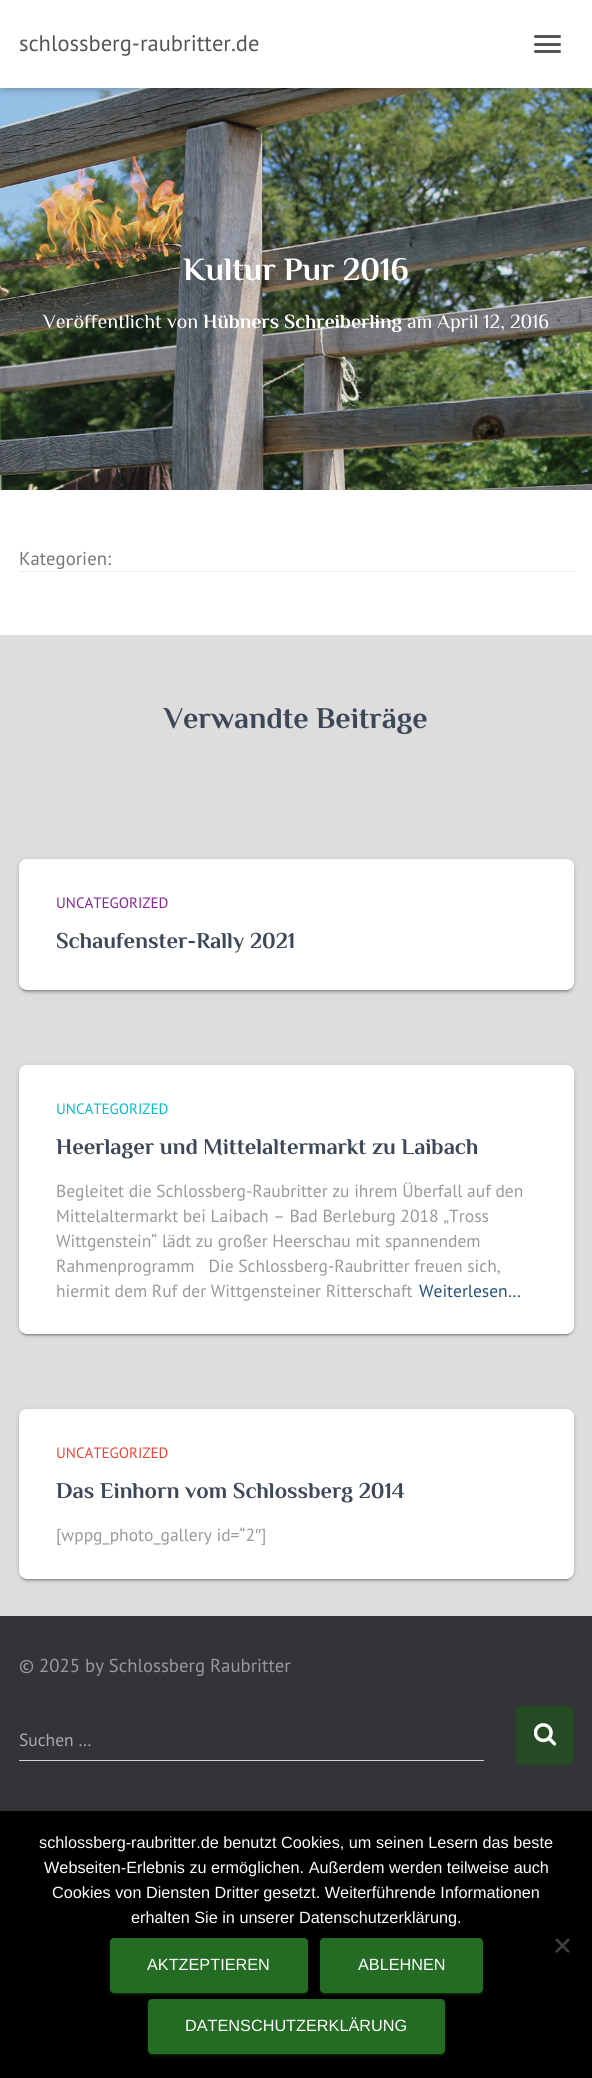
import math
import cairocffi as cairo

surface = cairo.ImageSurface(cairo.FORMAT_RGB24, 592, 2078)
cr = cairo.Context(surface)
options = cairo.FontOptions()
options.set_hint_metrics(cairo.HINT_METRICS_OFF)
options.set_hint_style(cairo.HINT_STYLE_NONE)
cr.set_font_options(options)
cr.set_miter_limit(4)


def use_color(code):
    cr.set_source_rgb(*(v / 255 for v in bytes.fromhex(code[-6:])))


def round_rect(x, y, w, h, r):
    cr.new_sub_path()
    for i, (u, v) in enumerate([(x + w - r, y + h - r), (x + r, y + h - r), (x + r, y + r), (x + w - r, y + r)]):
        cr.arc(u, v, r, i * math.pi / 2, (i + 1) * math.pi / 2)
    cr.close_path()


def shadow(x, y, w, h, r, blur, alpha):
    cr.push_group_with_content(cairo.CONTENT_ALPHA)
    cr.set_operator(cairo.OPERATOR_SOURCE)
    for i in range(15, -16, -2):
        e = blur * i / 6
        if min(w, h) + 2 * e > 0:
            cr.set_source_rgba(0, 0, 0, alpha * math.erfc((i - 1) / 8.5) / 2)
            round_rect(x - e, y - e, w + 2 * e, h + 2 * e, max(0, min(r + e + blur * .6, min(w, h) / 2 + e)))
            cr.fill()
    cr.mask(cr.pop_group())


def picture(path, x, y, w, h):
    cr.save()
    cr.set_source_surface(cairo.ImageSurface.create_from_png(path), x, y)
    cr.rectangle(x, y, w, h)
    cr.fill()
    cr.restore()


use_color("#dddddd")
cr.paint()
picture("img1.png", 0, 88, 592, 402)
use_color("#000000")
shadow(3, 8, 587, 82, 0, 3, 0.1)
shadow(0, 1, 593, 88, 0, 6, 0.12)
shadow(8, 9, 577, 72, 0, 6, 0.42)
use_color("#ffffff")
cr.rectangle(0, 0, 592, 88)
cr.fill()
cr.select_font_face("PT Sans")
cr.set_font_size(22.5)
use_color("#555555")
cr.move_to(19, 51)
cr.show_text("schlossberg-raubritter.de")
round_rect(534, 35, 27, 3, 1.5)
cr.fill()
round_rect(534, 43, 27, 3, 1.5)
cr.fill()
round_rect(534, 50, 27, 3, 1.5)
cr.fill()
cr.select_font_face("El Messiri", cairo.FONT_SLANT_NORMAL, cairo.FONT_WEIGHT_BOLD)
cr.set_font_size(32.5)
use_color("#ffffff")
cr.move_to(183, 280)
cr.show_text("Kultur Pur 2016")
cr.select_font_face("El Messiri")
cr.set_font_size(20)
cr.move_to(43, 328)
cr.show_text("Veröffentlicht von")
cr.select_font_face("El Messiri", cairo.FONT_SLANT_NORMAL, cairo.FONT_WEIGHT_BOLD)
cr.move_to(203, 328)
cr.show_text("Hübners Schreiberling")
cr.select_font_face("El Messiri")
cr.move_to(407, 328)
cr.show_text("am April 12, 2016")
cr.rectangle(0, 490, 592, 145)
cr.fill()
cr.select_font_face("PT Sans")
cr.set_font_size(18.75)
use_color("#777777")
cr.move_to(19, 565)
cr.show_text("Kategorien:")
use_color("#eeeeee")
cr.rectangle(19, 571, 555, 1)
cr.fill()
cr.select_font_face("El Messiri", cairo.FONT_SLANT_NORMAL, cairo.FONT_WEIGHT_BOLD)
cr.set_font_size(30)
use_color("#3c4858")
cr.move_to(164, 728)
cr.show_text("Verwandte Beiträge")
use_color("#000000")
shadow(19, 860, 555, 131, 8, 3, 0.12)
shadow(21, 865, 550, 126, 5, 0.5, 0.2)
shadow(19, 861, 555, 132, 8, 1, 0.14)
use_color("#ffffff")
round_rect(19, 859, 555, 131, 8)
cr.fill()
cr.select_font_face("PT Sans")
cr.set_font_size(15)
use_color("#89229b")
cr.move_to(56, 908)
cr.show_text("UNCATEGORIZED")
cr.select_font_face("El Messiri", cairo.FONT_SLANT_NORMAL, cairo.FONT_WEIGHT_BOLD)
cr.set_font_size(22.5)
use_color("#3c4858")
cr.move_to(56, 948)
cr.show_text("Schaufenster-Rally 2021")
use_color("#000000")
shadow(19, 1066, 555, 269, 8, 3, 0.12)
shadow(21, 1071, 550, 264, 5, 0.5, 0.2)
shadow(19, 1068, 555, 268, 8, 1, 0.14)
use_color("#ffffff")
round_rect(19, 1065, 555, 269, 8)
cr.fill()
cr.select_font_face("PT Sans")
cr.set_font_size(15)
use_color("#00bcd4")
cr.move_to(56, 1114)
cr.show_text("UNCATEGORIZED")
cr.select_font_face("El Messiri", cairo.FONT_SLANT_NORMAL, cairo.FONT_WEIGHT_BOLD)
cr.set_font_size(22.5)
use_color("#3c4858")
cr.move_to(56, 1154)
cr.show_text("Heerlager und Mittelaltermarkt zu Laibach")
cr.select_font_face("PT Sans")
cr.set_font_size(17.5)
use_color("#999999")
cr.move_to(56, 1197)
cr.show_text("Begleitet die Schlossberg-Raubritter zu ihrem Überfall auf den")
cr.move_to(56, 1222)
cr.show_text("Mittelaltermarkt bei Laibach – Bad Berleburg 2018 „Tross")
cr.move_to(56, 1247)
cr.show_text("Wittgenstein“ lädt zu großer Heerschau mit spannendem")
cr.move_to(56, 1272)
cr.show_text("Rahmenprogramm   Die Schlossberg-Raubritter freuen sich,")
cr.move_to(56, 1297)
cr.show_text("hiermit dem Ruf der Wittgensteiner Ritterschaft")
use_color("#23527c")
cr.move_to(419, 1297)
cr.show_text("Weiterlesen…")
use_color("#000000")
shadow(19, 1410, 555, 170, 8, 3, 0.12)
shadow(21, 1415, 550, 165, 5, 0.5, 0.2)
shadow(19, 1411, 555, 170, 8, 1, 0.14)
use_color("#ffffff")
round_rect(19, 1409, 555, 170, 8)
cr.fill()
cr.set_font_size(15)
use_color("#f44336")
cr.move_to(56, 1458)
cr.show_text("UNCATEGORIZED")
cr.select_font_face("El Messiri", cairo.FONT_SLANT_NORMAL, cairo.FONT_WEIGHT_BOLD)
cr.set_font_size(22.5)
use_color("#3c4858")
cr.move_to(56, 1498)
cr.show_text("Das Einhorn vom Schlossberg 2014")
cr.select_font_face("PT Sans")
cr.set_font_size(17.5)
use_color("#999999")
cr.move_to(56, 1541)
cr.show_text("[wppg_photo_gallery id=“2")
cr.select_font_face("Liberation Sans")
cr.move_to(255, 1541)
cr.show_text("″")
cr.select_font_face("PT Sans")
cr.move_to(261, 1541)
cr.show_text("]")
use_color("#323437")
cr.rectangle(0, 1616, 592, 195)
cr.fill()
cr.set_font_size(18.75)
use_color("#999999")
cr.move_to(19, 1672)
cr.show_text("© 2025 by Schlossberg Raubritter")
cr.set_font_size(17.5)
use_color("#aaaaaa")
cr.move_to(19, 1746)
cr.show_text("Suchen …")
use_color("#d2d2d2")
cr.rectangle(19, 1760, 465, 1)
cr.fill()
use_color("#246b24")
shadow(519, 1713, 51, 52, 1, 0.5, 0.2)
use_color("#264b24")
round_rect(516, 1706, 57, 58, 4)
cr.fill()
picture("img2.png", 534, 1723, 22, 23)
round_rect(516.5, 1706.5, 56, 57, 3.5)
cr.set_line_width(1)
cr.stroke()
use_color("#000000")
cr.rectangle(0, 1811, 592, 267)
cr.fill()
cr.select_font_face("Liberation Sans")
cr.set_font_size(16.25)
use_color("#ffffff")
cr.move_to(39, 1848)
cr.show_text("schlossberg-raubritter.de benutzt Cookies, um seinen Lesern das beste")
cr.move_to(44, 1873)
cr.show_text("Webseiten-Erlebnis zu ermöglichen. Außerdem werden teilweise auch")
cr.move_to(52, 1898)
cr.show_text("Cookies von Diensten Dritter gesetzt. Weiterführende Informationen")
cr.move_to(131, 1923)
cr.show_text("erhalten Sie in unserer Datenschutzerklärung.")
use_color("#404040")
cr.new_path()
cr.move_to(568, 1938)
cr.line_to(570, 1940)
cr.line_to(557, 1953)
cr.line_to(555, 1951.5)
cr.close_path()
cr.fill()
cr.new_path()
cr.move_to(555, 1940)
cr.line_to(557, 1938)
cr.line_to(570, 1951.5)
cr.line_to(568, 1953)
cr.close_path()
cr.fill()
use_color("#246b24")
shadow(110, 1939, 198, 55, 4, 3, 0.12)
shadow(113, 1944, 192, 50, 1, 0.5, 0.2)
shadow(110, 1940, 198, 55, 4, 1, 0.14)
use_color("#246b24")
round_rect(110, 1938, 198, 55, 4)
cr.fill()
use_color("#ffffff")
cr.move_to(147, 1970)
cr.show_text("AKTZEPTIEREN")
use_color("#246b24")
shadow(320, 1939, 163, 55, 4, 3, 0.12)
shadow(323, 1944, 157, 50, 1, 0.5, 0.2)
shadow(320, 1940, 163, 55, 4, 1, 0.14)
use_color("#246b24")
round_rect(320, 1938, 163, 55, 4)
cr.fill()
use_color("#ffffff")
cr.move_to(358, 1970)
cr.show_text("ABLEHNEN")
use_color("#246b24")
shadow(148, 2000, 297, 55, 4, 3, 0.12)
shadow(150, 2005, 293, 50, 1, 0.5, 0.2)
shadow(148, 2001, 297, 55, 4, 1, 0.14)
use_color("#246b24")
round_rect(148, 1999, 297, 55, 4)
cr.fill()
use_color("#ffffff")
cr.move_to(185, 2031)
cr.show_text("DATENSCHUTZERKLÄRUNG")
surface.write_to_png("result.png")
